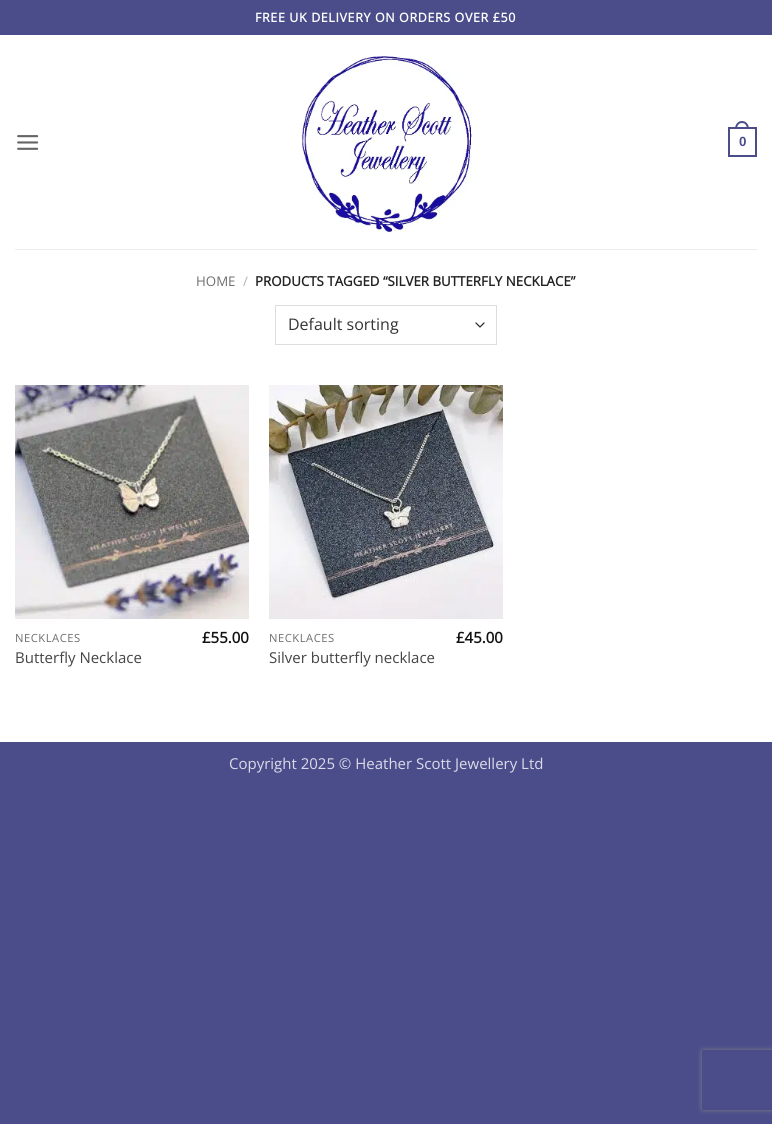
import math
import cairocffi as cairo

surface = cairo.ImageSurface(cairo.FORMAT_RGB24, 772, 1124)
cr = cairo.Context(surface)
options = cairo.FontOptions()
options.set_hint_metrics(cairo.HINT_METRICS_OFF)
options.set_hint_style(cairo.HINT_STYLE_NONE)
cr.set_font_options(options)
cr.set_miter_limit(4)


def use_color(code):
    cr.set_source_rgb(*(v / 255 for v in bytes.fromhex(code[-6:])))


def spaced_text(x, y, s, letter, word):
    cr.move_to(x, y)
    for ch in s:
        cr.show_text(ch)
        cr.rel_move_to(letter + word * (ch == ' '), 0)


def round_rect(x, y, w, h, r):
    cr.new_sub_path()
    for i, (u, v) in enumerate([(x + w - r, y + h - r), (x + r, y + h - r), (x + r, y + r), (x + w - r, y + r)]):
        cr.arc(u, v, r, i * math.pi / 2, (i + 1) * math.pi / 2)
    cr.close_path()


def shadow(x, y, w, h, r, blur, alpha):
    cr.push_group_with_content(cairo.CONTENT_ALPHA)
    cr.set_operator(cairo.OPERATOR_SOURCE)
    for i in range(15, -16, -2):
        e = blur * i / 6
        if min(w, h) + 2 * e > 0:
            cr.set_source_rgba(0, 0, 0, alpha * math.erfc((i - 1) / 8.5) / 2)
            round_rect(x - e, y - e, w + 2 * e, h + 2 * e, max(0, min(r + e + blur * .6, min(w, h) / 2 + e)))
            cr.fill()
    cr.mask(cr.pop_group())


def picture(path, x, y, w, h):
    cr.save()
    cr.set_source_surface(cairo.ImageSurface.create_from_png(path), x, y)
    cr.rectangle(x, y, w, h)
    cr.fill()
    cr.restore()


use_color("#4b4d8b")
cr.paint()
use_color("#ffffff")
cr.rectangle(0, 35, 772, 707)
cr.fill()
cr.select_font_face("Open Sans", cairo.FONT_SLANT_NORMAL, cairo.FONT_WEIGHT_BOLD)
cr.set_font_size(12.5)
spaced_text(255, 22, "FREE UK DELIVERY ON ORDERS OVER £50", 0.6, 0)
picture("img1.png", 17, 135, 22, 15)
picture("img2.png", 301, 54, 172, 180)
cr.rectangle(729, 128, 27, 28)
use_color("#4b4d8b")
cr.stroke()
cr.set_fill_rule(cairo.FILL_RULE_EVEN_ODD)
cr.new_path()
cr.move_to(742, 121)
cr.curve_to(746.5, 121, 749, 125, 749, 129)
cr.line_to(735, 129)
cr.curve_to(735, 125, 737.5, 121, 742, 121)
cr.close_path()
cr.move_to(742, 123)
cr.curve_to(745.5, 123, 747, 126, 747, 129)
cr.line_to(737, 129)
cr.curve_to(737, 126, 738.5, 123, 742, 123)
cr.close_path()
cr.fill()
cr.select_font_face("Liberation Sans", cairo.FONT_SLANT_NORMAL, cairo.FONT_WEIGHT_BOLD)
cr.set_font_size(13.3)
cr.move_to(739, 146)
cr.show_text("0")
use_color("#ededed")
cr.rectangle(15, 249, 742, 1)
cr.fill()
cr.select_font_face("Open Sans")
use_color("#6e6e6e")
cr.move_to(196, 286)
cr.show_text("HOME")
use_color("#b2b2b2")
cr.move_to(243, 286)
cr.show_text("/")
cr.select_font_face("Open Sans", cairo.FONT_SLANT_NORMAL, cairo.FONT_WEIGHT_BOLD)
use_color("#222222")
cr.move_to(255, 286)
cr.show_text("PRODUCTS TAGGED “SILVER BUTTERFLY NECKLACE”")
cr.new_path()
cr.move_to(476, 323)
cr.line_to(480, 327)
cr.line_to(484, 323)
use_color("#333333")
cr.set_line_width(1.3)
cr.set_line_cap(cairo.LINE_CAP_ROUND)
cr.set_line_join(cairo.LINE_JOIN_ROUND)
cr.stroke()
cr.rectangle(275.5, 305.5, 221, 39)
use_color("#dddddd")
cr.set_line_width(1)
cr.set_line_cap(cairo.LINE_CAP_BUTT)
cr.set_line_join(cairo.LINE_JOIN_MITER)
cr.stroke()
cr.select_font_face("Open Sans")
cr.set_font_size(16)
use_color("#333333")
cr.move_to(288, 330)
cr.show_text("Default sorting")
picture("img3.png", 15, 385, 234, 234)
cr.set_font_size(11.25)
use_color("#6e6e6e")
spaced_text(15, 642, "NECKLACES", 0.5, 0)
cr.set_font_size(15)
use_color("#444444")
cr.move_to(15, 663)
cr.show_text("Butterfly Necklace")
cr.select_font_face("Open Sans", cairo.FONT_SLANT_NORMAL, cairo.FONT_WEIGHT_BOLD)
use_color("#111111")
cr.move_to(202, 643)
cr.show_text("£55.00")
picture("img4.png", 269, 385, 234, 234)
cr.select_font_face("Open Sans")
cr.set_font_size(11.25)
use_color("#6e6e6e")
spaced_text(269, 642, "NECKLACES", 0.5, 0)
cr.set_font_size(15)
use_color("#444444")
cr.move_to(269, 663)
cr.show_text("Silver butterfly necklace")
cr.select_font_face("Open Sans", cairo.FONT_SLANT_NORMAL, cairo.FONT_WEIGHT_BOLD)
use_color("#111111")
cr.move_to(456, 643)
cr.show_text("£45.00")
cr.select_font_face("Open Sans")
use_color("#dbdbe8")
cr.move_to(229, 769)
cr.show_text("Copyright 2025 © Heather Scott Jewellery Ltd")
cr.save()
cr.new_path()
cr.move_to(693, 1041)
cr.line_to(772, 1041)
cr.line_to(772, 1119)
cr.line_to(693, 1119)
cr.close_path()
cr.move_to(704, 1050)
cr.line_to(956, 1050)
cr.curve_to(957, 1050, 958, 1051, 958, 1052)
cr.line_to(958, 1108)
cr.curve_to(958, 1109, 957, 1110, 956, 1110)
cr.line_to(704, 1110)
cr.curve_to(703, 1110, 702, 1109, 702, 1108)
cr.line_to(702, 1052)
cr.curve_to(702, 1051, 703, 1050, 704, 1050)
cr.close_path()
cr.clip()
use_color("#808080")
shadow(702, 1050, 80, 60, 2, 2.5, 1)
cr.restore()
surface.write_to_png("result.png")
